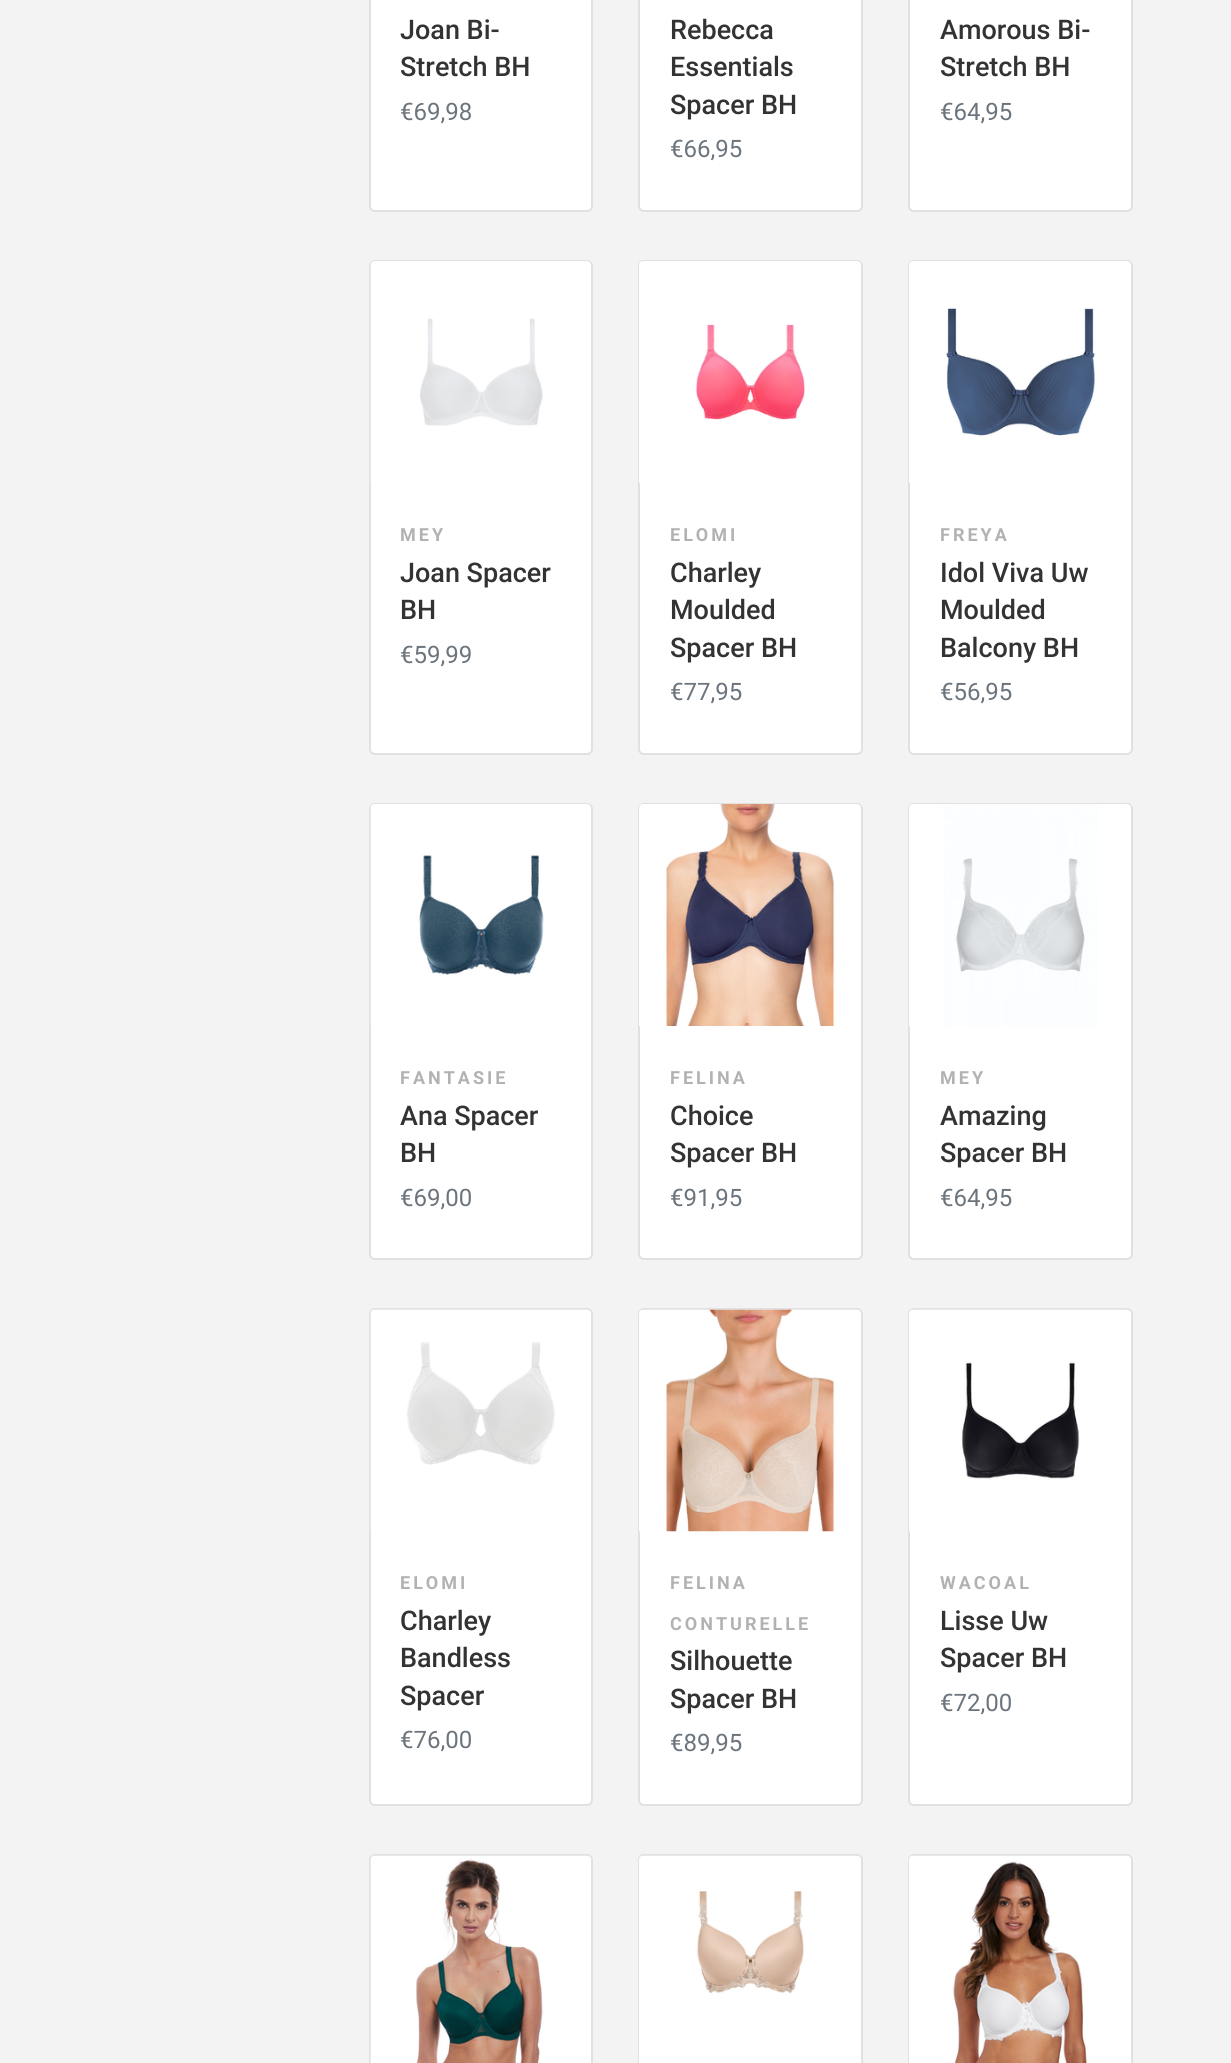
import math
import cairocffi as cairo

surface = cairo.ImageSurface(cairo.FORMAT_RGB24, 1231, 2063)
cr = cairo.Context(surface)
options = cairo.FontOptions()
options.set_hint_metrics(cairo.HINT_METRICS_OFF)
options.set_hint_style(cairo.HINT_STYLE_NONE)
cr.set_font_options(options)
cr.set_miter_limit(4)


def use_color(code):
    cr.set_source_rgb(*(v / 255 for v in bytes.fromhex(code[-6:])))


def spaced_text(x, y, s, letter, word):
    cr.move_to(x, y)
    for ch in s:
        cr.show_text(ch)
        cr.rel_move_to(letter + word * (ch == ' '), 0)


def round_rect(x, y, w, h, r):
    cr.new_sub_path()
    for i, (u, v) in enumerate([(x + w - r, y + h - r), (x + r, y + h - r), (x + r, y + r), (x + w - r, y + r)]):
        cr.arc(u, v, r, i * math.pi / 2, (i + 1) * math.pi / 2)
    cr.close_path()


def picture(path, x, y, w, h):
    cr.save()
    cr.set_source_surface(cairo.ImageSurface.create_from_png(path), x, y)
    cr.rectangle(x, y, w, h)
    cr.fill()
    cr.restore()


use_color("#f3f3f3")
cr.paint()
use_color("#ffffff")
round_rect(369, -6, 224, 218, 6)
cr.fill()
round_rect(370, -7, 222, 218, 5)
cr.set_source_rgba(0, 0, 0, 0.12)
cr.stroke()
cr.select_font_face("Roboto Medium")
cr.set_font_size(27)
use_color("#333333")
cr.move_to(400, 39)
cr.show_text("Joan Bi-")
cr.move_to(400, 76)
cr.show_text("Stretch BH")
cr.select_font_face("Roboto")
cr.set_font_size(24)
use_color("#6c757d")
cr.move_to(400, 120)
cr.show_text("€69,98")
use_color("#ffffff")
round_rect(638, -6, 225, 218, 6)
cr.fill()
round_rect(639, -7, 223, 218, 5)
cr.set_source_rgba(0, 0, 0, 0.12)
cr.stroke()
cr.select_font_face("Roboto Medium")
cr.set_font_size(27)
use_color("#333333")
cr.move_to(670, 39)
cr.show_text("Rebecca")
cr.move_to(670, 76)
cr.show_text("Essentials")
cr.move_to(670, 114)
cr.show_text("Spacer BH")
cr.select_font_face("Roboto")
cr.set_font_size(24)
use_color("#6c757d")
cr.move_to(670, 157)
cr.show_text("€66,95")
use_color("#ffffff")
round_rect(908, -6, 225, 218, 6)
cr.fill()
round_rect(909, -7, 223, 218, 5)
cr.set_source_rgba(0, 0, 0, 0.12)
cr.stroke()
cr.select_font_face("Roboto Medium")
cr.set_font_size(27)
use_color("#333333")
cr.move_to(940, 39)
cr.show_text("Amorous Bi-")
cr.move_to(940, 76)
cr.show_text("Stretch BH")
cr.select_font_face("Roboto")
cr.set_font_size(24)
use_color("#6c757d")
cr.move_to(940, 120)
cr.show_text("€64,95")
use_color("#ffffff")
round_rect(369, 260, 224, 495, 6)
cr.fill()
round_rect(370, 261, 222, 493, 5)
cr.set_source_rgba(0, 0, 0, 0.12)
cr.stroke()
picture("img1.png", 370, 261, 221, 222)
cr.select_font_face("Roboto", cairo.FONT_SLANT_NORMAL, cairo.FONT_WEIGHT_BOLD)
cr.set_font_size(18)
use_color("#b2b2b2")
spaced_text(400, 541, "MEY", 3, 0)
cr.select_font_face("Roboto Medium")
cr.set_font_size(27)
use_color("#333333")
cr.move_to(400, 582)
cr.show_text("Joan Spacer")
cr.move_to(400, 619)
cr.show_text("BH")
cr.select_font_face("Roboto")
cr.set_font_size(24)
use_color("#6c757d")
cr.move_to(400, 663)
cr.show_text("€59,99")
use_color("#ffffff")
round_rect(638, 260, 225, 495, 6)
cr.fill()
round_rect(639, 261, 223, 493, 5)
cr.set_source_rgba(0, 0, 0, 0.12)
cr.stroke()
picture("img2.png", 639, 261, 222, 222)
cr.select_font_face("Roboto", cairo.FONT_SLANT_NORMAL, cairo.FONT_WEIGHT_BOLD)
cr.set_font_size(18)
use_color("#b2b2b2")
spaced_text(670, 541, "ELOMI", 3, 0)
cr.select_font_face("Roboto Medium")
cr.set_font_size(27)
use_color("#333333")
cr.move_to(670, 582)
cr.show_text("Charley")
cr.move_to(670, 619)
cr.show_text("Moulded")
cr.move_to(670, 657)
cr.show_text("Spacer BH")
cr.select_font_face("Roboto")
cr.set_font_size(24)
use_color("#6c757d")
cr.move_to(670, 700)
cr.show_text("€77,95")
use_color("#ffffff")
round_rect(908, 260, 225, 495, 6)
cr.fill()
round_rect(909, 261, 223, 493, 5)
cr.set_source_rgba(0, 0, 0, 0.12)
cr.stroke()
picture("img3.png", 909, 261, 222, 222)
cr.select_font_face("Roboto", cairo.FONT_SLANT_NORMAL, cairo.FONT_WEIGHT_BOLD)
cr.set_font_size(18)
use_color("#b2b2b2")
spaced_text(940, 541, "FREYA", 3, 0)
cr.select_font_face("Roboto Medium")
cr.set_font_size(27)
use_color("#333333")
cr.move_to(940, 582)
cr.show_text("Idol Viva Uw")
cr.move_to(940, 619)
cr.show_text("Moulded")
cr.move_to(940, 657)
cr.show_text("Balcony BH")
cr.select_font_face("Roboto")
cr.set_font_size(24)
use_color("#6c757d")
cr.move_to(940, 700)
cr.show_text("€56,95")
use_color("#ffffff")
round_rect(369, 803, 224, 457, 6)
cr.fill()
round_rect(370, 804, 222, 455, 5)
cr.set_source_rgba(0, 0, 0, 0.12)
cr.stroke()
picture("img4.png", 370, 804, 221, 222)
cr.select_font_face("Roboto", cairo.FONT_SLANT_NORMAL, cairo.FONT_WEIGHT_BOLD)
cr.set_font_size(18)
use_color("#b2b2b2")
spaced_text(400, 1084, "FANTASIE", 3, 0)
cr.select_font_face("Roboto Medium")
cr.set_font_size(27)
use_color("#333333")
cr.move_to(400, 1125)
cr.show_text("Ana Spacer")
cr.move_to(400, 1162)
cr.show_text("BH")
cr.select_font_face("Roboto")
cr.set_font_size(24)
use_color("#6c757d")
cr.move_to(400, 1206)
cr.show_text("€69,00")
use_color("#ffffff")
round_rect(638, 803, 225, 457, 6)
cr.fill()
round_rect(639, 804, 223, 455, 5)
cr.set_source_rgba(0, 0, 0, 0.12)
cr.stroke()
picture("img5.png", 639, 804, 222, 222)
cr.select_font_face("Roboto", cairo.FONT_SLANT_NORMAL, cairo.FONT_WEIGHT_BOLD)
cr.set_font_size(18)
use_color("#b2b2b2")
spaced_text(670, 1084, "FELINA", 3, 0)
cr.select_font_face("Roboto Medium")
cr.set_font_size(27)
use_color("#333333")
cr.move_to(670, 1125)
cr.show_text("Choice")
cr.move_to(670, 1162)
cr.show_text("Spacer BH")
cr.select_font_face("Roboto")
cr.set_font_size(24)
use_color("#6c757d")
cr.move_to(670, 1206)
cr.show_text("€91,95")
use_color("#ffffff")
round_rect(908, 803, 225, 457, 6)
cr.fill()
round_rect(909, 804, 223, 455, 5)
cr.set_source_rgba(0, 0, 0, 0.12)
cr.stroke()
picture("img6.png", 909, 804, 222, 222)
cr.select_font_face("Roboto", cairo.FONT_SLANT_NORMAL, cairo.FONT_WEIGHT_BOLD)
cr.set_font_size(18)
use_color("#b2b2b2")
spaced_text(940, 1084, "MEY", 3, 0)
cr.select_font_face("Roboto Medium")
cr.set_font_size(27)
use_color("#333333")
cr.move_to(940, 1125)
cr.show_text("Amazing")
cr.move_to(940, 1162)
cr.show_text("Spacer BH")
cr.select_font_face("Roboto")
cr.set_font_size(24)
use_color("#6c757d")
cr.move_to(940, 1206)
cr.show_text("€64,95")
use_color("#ffffff")
round_rect(369, 1308, 224, 498, 6)
cr.fill()
round_rect(370, 1309, 222, 496, 5)
cr.set_source_rgba(0, 0, 0, 0.12)
cr.stroke()
picture("img7.png", 370, 1309, 221, 222)
cr.select_font_face("Roboto", cairo.FONT_SLANT_NORMAL, cairo.FONT_WEIGHT_BOLD)
cr.set_font_size(18)
use_color("#b2b2b2")
spaced_text(400, 1589, "ELOMI", 3, 0)
cr.select_font_face("Roboto Medium")
cr.set_font_size(27)
use_color("#333333")
cr.move_to(400, 1630)
cr.show_text("Charley")
cr.move_to(400, 1667)
cr.show_text("Bandless")
cr.move_to(400, 1705)
cr.show_text("Spacer")
cr.select_font_face("Roboto")
cr.set_font_size(24)
use_color("#6c757d")
cr.move_to(400, 1748)
cr.show_text("€76,00")
use_color("#ffffff")
round_rect(638, 1308, 225, 498, 6)
cr.fill()
round_rect(639, 1309, 223, 496, 5)
cr.set_source_rgba(0, 0, 0, 0.12)
cr.stroke()
picture("img8.png", 639, 1309, 222, 223)
cr.select_font_face("Roboto", cairo.FONT_SLANT_NORMAL, cairo.FONT_WEIGHT_BOLD)
cr.set_font_size(18)
use_color("#b2b2b2")
spaced_text(670, 1589, "FELINA", 3, 0)
spaced_text(670, 1630, "CONTURELLE", 3, 0)
cr.select_font_face("Roboto Medium")
cr.set_font_size(27)
use_color("#333333")
cr.move_to(670, 1670)
cr.show_text("Silhouette")
cr.move_to(670, 1708)
cr.show_text("Spacer BH")
cr.select_font_face("Roboto")
cr.set_font_size(24)
use_color("#6c757d")
cr.move_to(670, 1751)
cr.show_text("€89,95")
use_color("#ffffff")
round_rect(908, 1308, 225, 498, 6)
cr.fill()
round_rect(909, 1309, 223, 496, 5)
cr.set_source_rgba(0, 0, 0, 0.12)
cr.stroke()
picture("img9.png", 909, 1309, 222, 223)
cr.select_font_face("Roboto", cairo.FONT_SLANT_NORMAL, cairo.FONT_WEIGHT_BOLD)
cr.set_font_size(18)
use_color("#b2b2b2")
spaced_text(940, 1589, "WACOAL", 3, 0)
cr.select_font_face("Roboto Medium")
cr.set_font_size(27)
use_color("#333333")
cr.move_to(940, 1630)
cr.show_text("Lisse Uw")
cr.move_to(940, 1667)
cr.show_text("Spacer BH")
cr.select_font_face("Roboto")
cr.set_font_size(24)
use_color("#6c757d")
cr.move_to(940, 1711)
cr.show_text("€72,00")
use_color("#ffffff")
round_rect(369, 1854, 224, 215, 6)
cr.fill()
round_rect(370, 1855, 222, 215, 5)
cr.set_source_rgba(0, 0, 0, 0.12)
cr.stroke()
picture("img10.png", 370, 1855, 221, 208)
use_color("#ffffff")
round_rect(638, 1854, 225, 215, 6)
cr.fill()
round_rect(639, 1855, 223, 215, 5)
cr.set_source_rgba(0, 0, 0, 0.12)
cr.stroke()
picture("img11.png", 639, 1855, 222, 208)
use_color("#ffffff")
round_rect(908, 1854, 225, 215, 6)
cr.fill()
round_rect(909, 1855, 223, 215, 5)
cr.set_source_rgba(0, 0, 0, 0.12)
cr.stroke()
picture("img12.png", 909, 1855, 222, 208)
surface.write_to_png("result.png")
